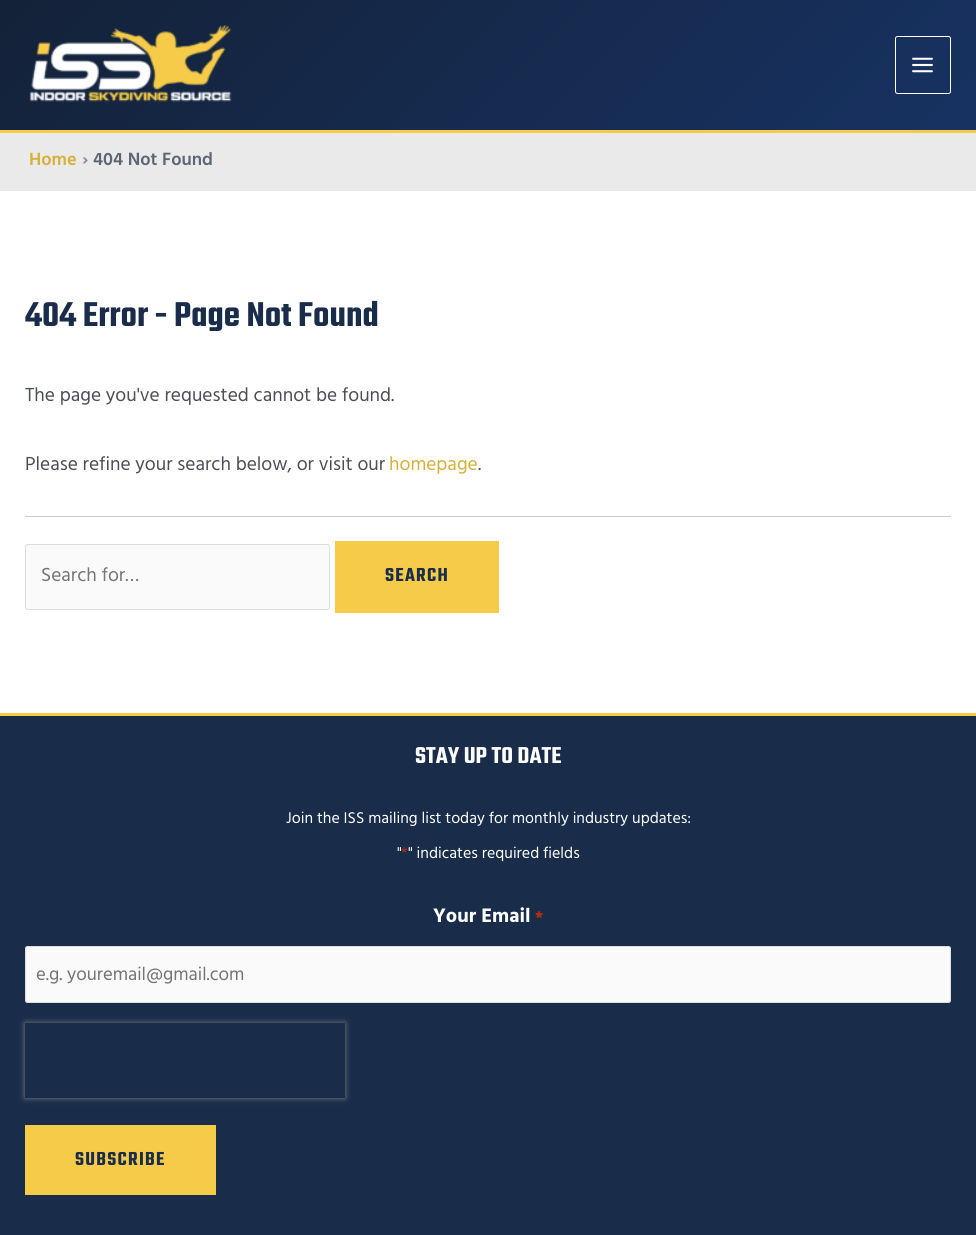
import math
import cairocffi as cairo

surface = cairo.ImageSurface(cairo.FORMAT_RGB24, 976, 1235)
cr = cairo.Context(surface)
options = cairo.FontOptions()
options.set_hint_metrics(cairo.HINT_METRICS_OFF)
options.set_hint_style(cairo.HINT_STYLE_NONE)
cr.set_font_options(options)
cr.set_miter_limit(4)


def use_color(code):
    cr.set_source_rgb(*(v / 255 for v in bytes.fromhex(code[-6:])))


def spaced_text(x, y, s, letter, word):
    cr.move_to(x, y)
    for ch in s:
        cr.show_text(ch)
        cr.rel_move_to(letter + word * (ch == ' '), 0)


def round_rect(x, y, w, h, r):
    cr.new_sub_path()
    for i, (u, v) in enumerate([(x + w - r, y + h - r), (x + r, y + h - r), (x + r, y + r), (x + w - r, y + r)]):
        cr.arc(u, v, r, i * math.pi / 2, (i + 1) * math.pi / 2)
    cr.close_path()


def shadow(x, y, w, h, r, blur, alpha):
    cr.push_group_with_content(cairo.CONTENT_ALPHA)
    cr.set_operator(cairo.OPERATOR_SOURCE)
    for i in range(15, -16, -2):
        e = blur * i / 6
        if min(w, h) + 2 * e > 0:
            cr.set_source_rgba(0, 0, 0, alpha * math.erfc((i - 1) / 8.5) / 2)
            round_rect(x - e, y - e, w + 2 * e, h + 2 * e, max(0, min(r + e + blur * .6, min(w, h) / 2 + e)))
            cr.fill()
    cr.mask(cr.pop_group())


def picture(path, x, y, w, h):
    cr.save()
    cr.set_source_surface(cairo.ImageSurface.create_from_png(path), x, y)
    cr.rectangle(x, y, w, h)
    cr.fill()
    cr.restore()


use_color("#ffffff")
cr.paint()
gradient = cairo.LinearGradient(212, -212, 765, 342)
gradient.add_color_stop_rgba(0, 0.078, 0.133, 0.22, 1)
gradient.add_color_stop_rgba(1, 0.09, 0.196, 0.384, 1)
cr.set_source(gradient)
cr.rectangle(0, 0, 976, 130)
cr.fill()
use_color("#f6cb49")
cr.rectangle(0, 130, 976, 3)
cr.fill()
picture("img1.png", 29, 25, 203, 77)
round_rect(895.5, 36.5, 55, 57, 2)
use_color("#ffffff")
cr.set_line_width(1)
cr.stroke()
picture("img2.png", 912, 57, 21, 16)
use_color("#eaeaea")
cr.rectangle(0, 133, 976, 58)
cr.fill()
cr.select_font_face("Hind Madurai SemiBold")
cr.set_font_size(18.25)
use_color("#d6b03b")
cr.move_to(29, 165)
cr.show_text("Home")
use_color("#878995")
cr.move_to(82, 165)
cr.show_text("›")
use_color("#5d6674")
cr.move_to(93, 165)
cr.show_text("404 Not Found")
cr.select_font_face("Teko SemiBold")
cr.set_font_size(37.5)
use_color("#192c4a")
cr.move_to(25, 326)
cr.show_text("404 Error - Page Not Found")
cr.select_font_face("Hind Madurai")
cr.set_font_size(19.4)
use_color("#4b4f58")
cr.move_to(25, 401)
cr.show_text("The page you've requested cannot be found.")
cr.move_to(25, 470)
cr.show_text("Please refine your search below, or visit our")
use_color("#d6b03b")
cr.move_to(389, 470)
cr.show_text("homepage")
use_color("#4b4f58")
cr.move_to(478, 470)
cr.show_text(".")
use_color("#cacaca")
cr.rectangle(25, 516, 926, 1)
cr.fill()
use_color("#fafafa")
round_rect(25.5, 544.5, 304, 65, 2)
cr.fill_preserve()
use_color("#dddddd")
cr.stroke()
use_color("#757575")
cr.move_to(41, 581)
cr.show_text("Search for…")
use_color("#f6cb49")
cr.rectangle(335, 541, 164, 72)
cr.fill()
cr.select_font_face("Teko SemiBold")
cr.set_font_size(20.5)
use_color("#192c4a")
spaced_text(385, 581, "SEARCH", 1.25, 0)
cr.rectangle(0, 716, 976, 519)
cr.fill()
use_color("#f6cb49")
cr.rectangle(0, 713, 976, 3)
cr.fill()
cr.set_font_size(25)
use_color("#ffffff")
cr.move_to(415, 763)
cr.show_text("STAY UP TO DATE")
cr.select_font_face("Hind Madurai")
cr.set_font_size(15.95)
cr.move_to(286, 823)
cr.show_text("Join the ISS mailing list today for monthly industry updates:")
cr.move_to(397, 858)
cr.show_text("\"")
cr.set_font_size(16)
use_color("#c02b0a")
cr.move_to(401, 858)
cr.show_text("*")
cr.set_font_size(15.95)
use_color("#ffffff")
cr.move_to(408, 858)
cr.show_text("\" indicates required fields")
cr.select_font_face("Hind Madurai", cairo.FONT_SLANT_NORMAL, cairo.FONT_WEIGHT_BOLD)
cr.set_font_size(20)
cr.move_to(433, 922)
cr.show_text("Your Email")
cr.set_font_size(16)
use_color("#c02b0a")
cr.move_to(535, 922)
cr.show_text("*")
use_color("#fafafa")
round_rect(25.5, 946.5, 925, 56, 2)
cr.fill_preserve()
use_color("#dddddd")
cr.stroke()
cr.select_font_face("Hind Madurai")
cr.set_font_size(18.75)
use_color("#757575")
cr.move_to(36, 980)
cr.show_text("e.g. youremail@gmail.com")
cr.save()
cr.set_fill_rule(cairo.FILL_RULE_EVEN_ODD)
cr.new_path()
cr.move_to(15, 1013)
cr.line_to(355, 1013)
cr.line_to(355, 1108)
cr.line_to(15, 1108)
cr.close_path()
cr.move_to(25, 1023)
cr.line_to(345, 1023)
cr.line_to(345, 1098)
cr.line_to(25, 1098)
cr.close_path()
cr.clip()
use_color("#808080")
shadow(25, 1023, 320, 75, 0, 3, 1)
cr.restore()
use_color("#f6cb49")
cr.rectangle(25, 1125, 191, 70)
cr.fill()
cr.select_font_face("Teko SemiBold")
cr.set_font_size(20.5)
use_color("#192c4a")
spaced_text(75, 1165, "SUBSCRIBE", 1.25, 0)
surface.write_to_png("result.png")
